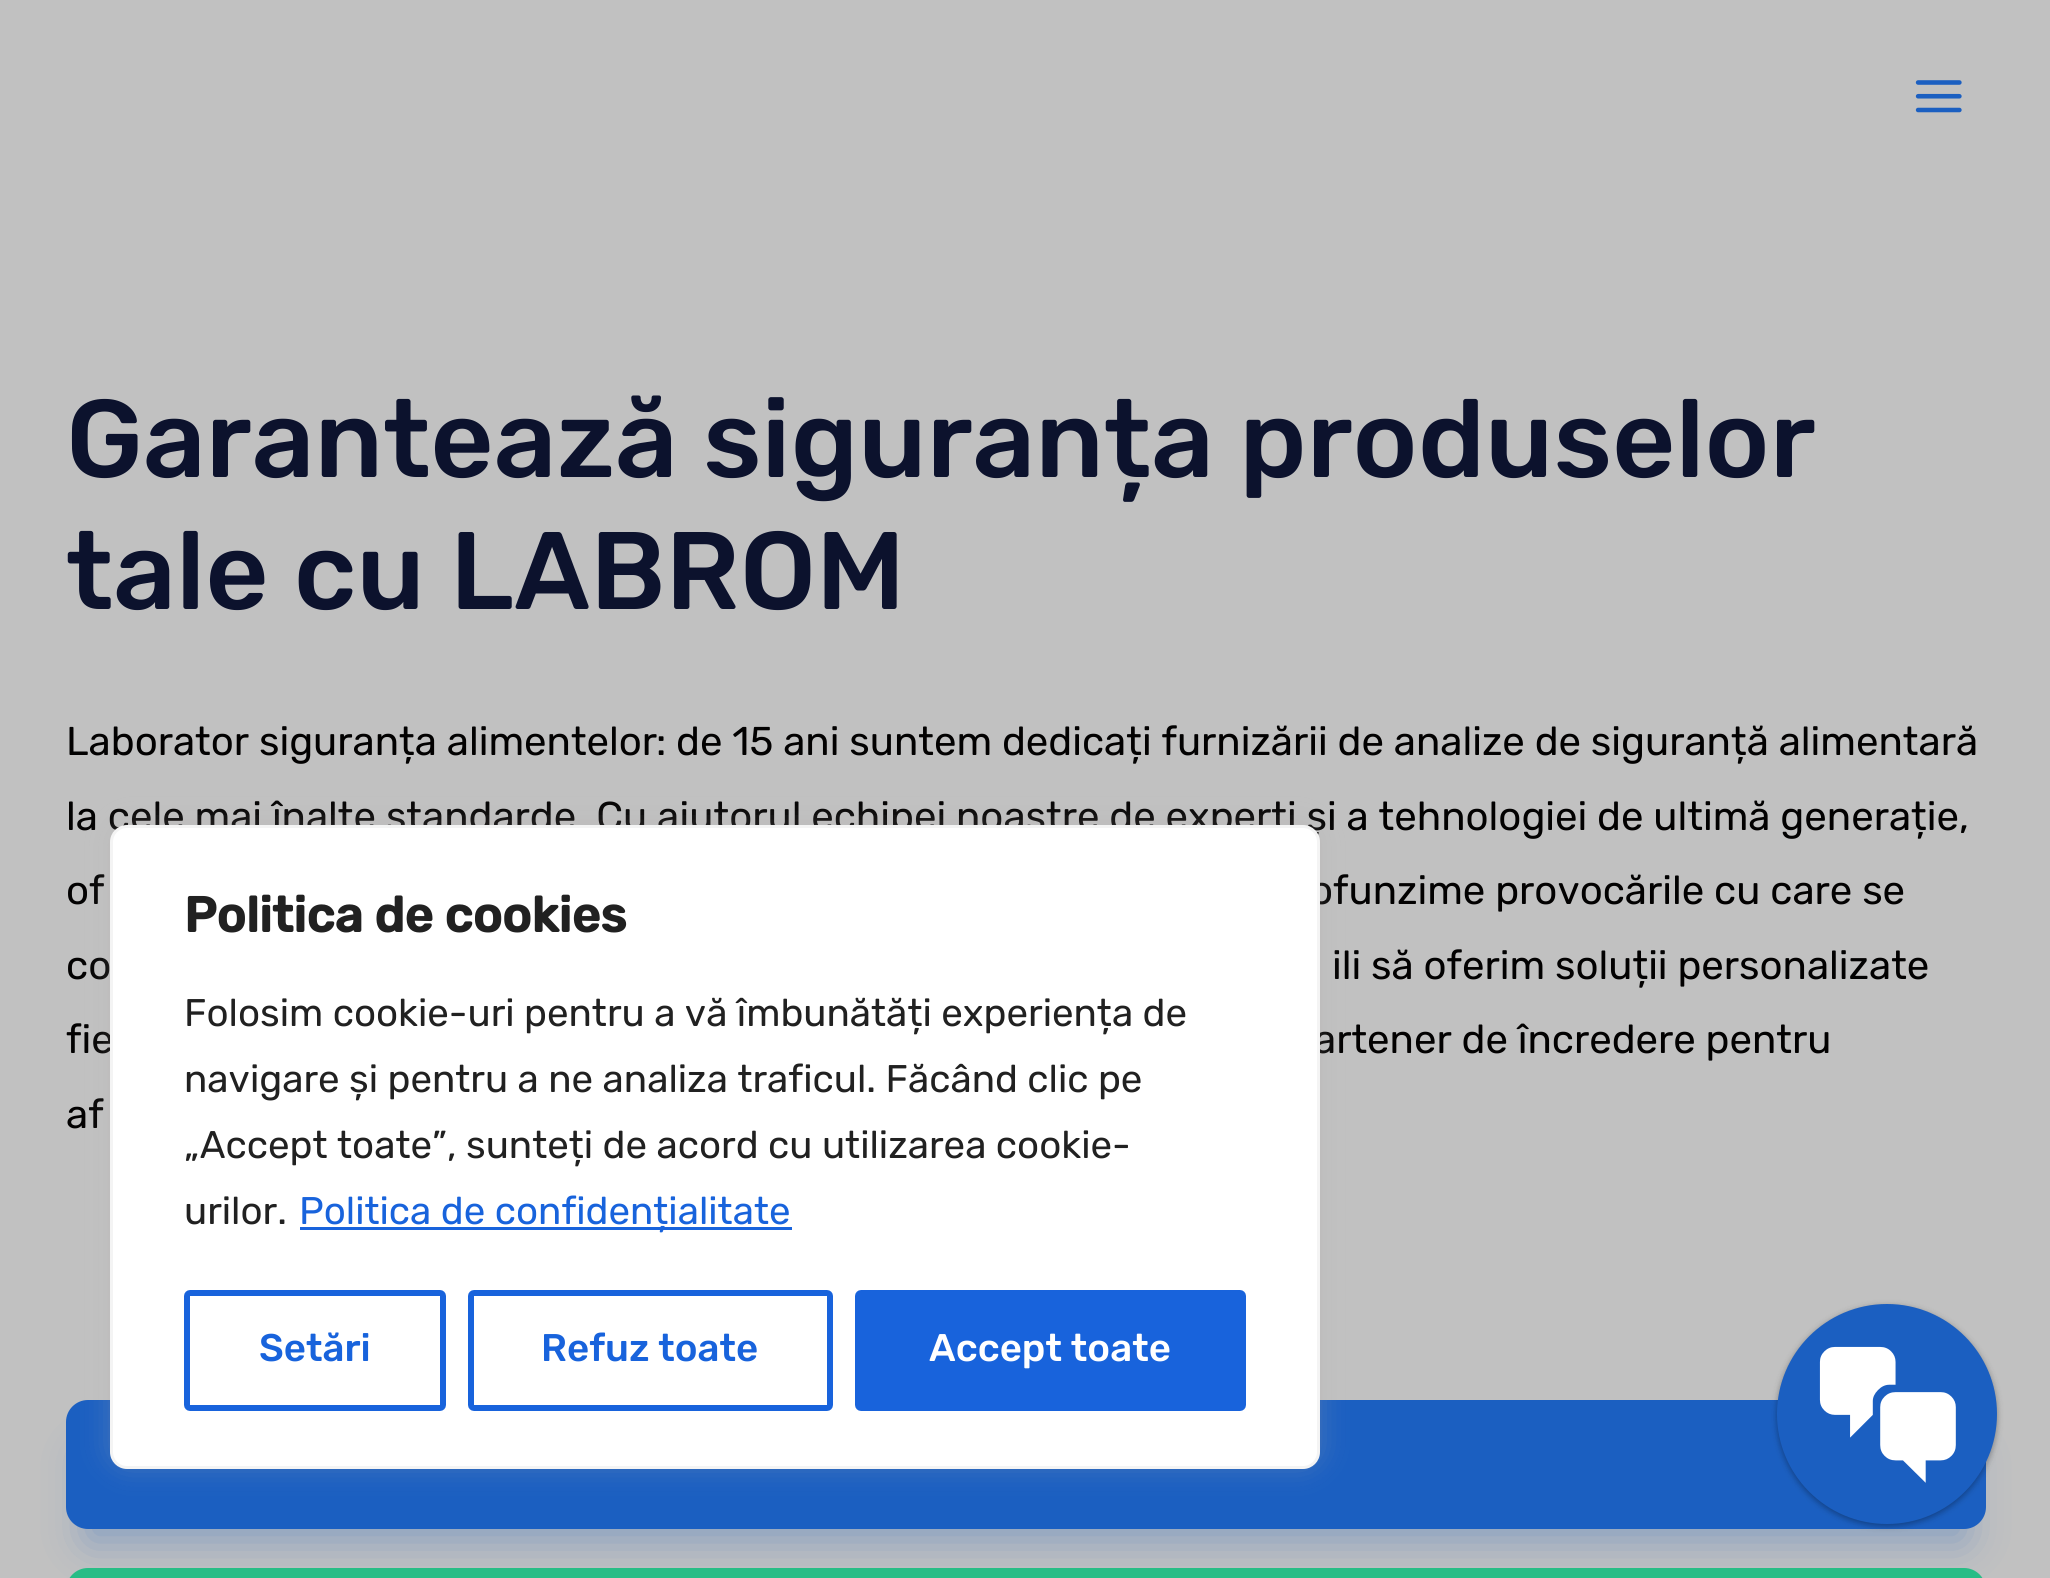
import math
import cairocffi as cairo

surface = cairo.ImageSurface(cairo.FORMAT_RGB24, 2050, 1578)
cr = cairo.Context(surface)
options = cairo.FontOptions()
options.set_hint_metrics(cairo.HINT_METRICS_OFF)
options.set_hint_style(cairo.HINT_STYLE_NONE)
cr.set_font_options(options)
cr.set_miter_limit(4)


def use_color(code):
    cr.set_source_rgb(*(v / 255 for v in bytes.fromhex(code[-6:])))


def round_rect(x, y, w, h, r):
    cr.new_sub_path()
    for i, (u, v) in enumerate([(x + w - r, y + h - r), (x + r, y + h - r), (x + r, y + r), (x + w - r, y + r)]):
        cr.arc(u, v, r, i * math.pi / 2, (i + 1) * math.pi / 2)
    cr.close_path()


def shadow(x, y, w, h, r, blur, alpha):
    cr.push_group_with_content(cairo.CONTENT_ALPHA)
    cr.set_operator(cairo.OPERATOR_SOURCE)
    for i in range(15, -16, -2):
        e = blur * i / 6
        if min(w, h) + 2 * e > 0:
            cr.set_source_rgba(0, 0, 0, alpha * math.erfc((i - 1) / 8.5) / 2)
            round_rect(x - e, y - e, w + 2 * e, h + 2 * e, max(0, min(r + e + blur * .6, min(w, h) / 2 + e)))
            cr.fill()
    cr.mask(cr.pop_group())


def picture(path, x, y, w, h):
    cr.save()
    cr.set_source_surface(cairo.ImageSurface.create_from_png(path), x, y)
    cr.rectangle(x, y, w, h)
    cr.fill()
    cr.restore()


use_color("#c1c1c1")
cr.paint()
picture("img1.png", 1915, 80, 47, 33)
cr.select_font_face("Rubik Medium")
cr.set_font_size(110)
use_color("#0c122d")
cr.move_to(66, 477)
cr.show_text("Garantează siguranța produselor")
cr.move_to(66, 609)
cr.show_text("tale cu LABROM")
cr.select_font_face("Rubik")
cr.set_font_size(40.15)
use_color("#020101")
cr.move_to(66, 755)
cr.show_text("Laborator siguranța alimentelor")
cr.move_to(656, 755)
cr.show_text(": de 15 ani suntem dedicați furnizării de analize de siguranță alimentară")
cr.move_to(66, 830)
cr.show_text("la cele mai înalte standarde. Cu ajutorul echipei noastre de experți și a tehnologiei de ultimă generație,")
cr.move_to(66, 904)
cr.show_text("of")
cr.move_to(1310, 904)
cr.show_text("ofunzime provocările cu care se")
cr.move_to(66, 979)
cr.show_text("co")
cr.move_to(1332, 979)
cr.show_text("ili să oferim soluții personalizate")
cr.move_to(66, 1053)
cr.show_text("fie")
cr.move_to(1314, 1053)
cr.show_text("artener de încredere pentru")
cr.move_to(66, 1128)
cr.show_text("af")
use_color("#1b5fc1")
shadow(88, 1455, 1876, 85, 0, 22, 0.38)
use_color("#1b5fc1")
round_rect(67.5, 1401.5, 1917, 126, 20.5)
cr.fill_preserve()
cr.set_line_width(3)
cr.stroke()
use_color("#28bd86")
round_rect(67.5, 1569.5, 1917, 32, 20.5)
cr.fill_preserve()
cr.stroke()
use_color("#acabab")
shadow(110, 822, 1210, 644, 17, 14, 0.3)
use_color("#ffffff")
round_rect(111.5, 826.5, 1207, 641, 15.5)
cr.fill_preserve()
use_color("#f4f4f4")
cr.stroke()
cr.select_font_face("Rubik", cairo.FONT_SLANT_NORMAL, cairo.FONT_WEIGHT_BOLD)
cr.set_font_size(49.5)
use_color("#212121")
cr.move_to(184, 932)
cr.show_text("Politica de cookies")
cr.select_font_face("Rubik")
cr.set_font_size(38.5)
cr.move_to(184, 1026)
cr.show_text("Folosim cookie-uri pentru a vă îmbunătăți experiența de")
cr.move_to(184, 1092)
cr.show_text("navigare și pentru a ne analiza traficul. Făcând clic pe")
cr.move_to(184, 1158)
cr.show_text("„Accept toate”, sunteți de acord cu utilizarea cookie-")
cr.move_to(184, 1224)
cr.show_text("urilor.")
use_color("#1863dc")
cr.rectangle(300, 1227, 492, 3)
cr.fill()
cr.move_to(299, 1224)
cr.show_text("Politica de confidențialitate")
round_rect(187, 1293, 256, 115, 3)
cr.set_line_width(6)
cr.stroke()
cr.select_font_face("Rubik Medium")
cr.move_to(259, 1361)
cr.show_text("Setări")
round_rect(471, 1293, 359, 115, 3)
cr.stroke()
cr.move_to(541, 1361)
cr.show_text("Refuz toate")
round_rect(858, 1293, 385, 115, 3)
cr.fill_preserve()
cr.stroke()
use_color("#ffffff")
cr.move_to(929, 1361)
cr.show_text("Accept toate")
use_color("#000000")
shadow(1777, 1306, 220, 220, 110, 3, 0.24)
shadow(1777, 1306, 220, 220, 110, 4, 0.12)
use_color("#1b5fc1")
cr.arc(1887, 1414, 106, 0, 2 * math.pi)
cr.fill_preserve()
cr.set_line_width(8)
cr.stroke()
picture("img2.png", 1819, 1346, 137, 137)
surface.write_to_png("result.png")
